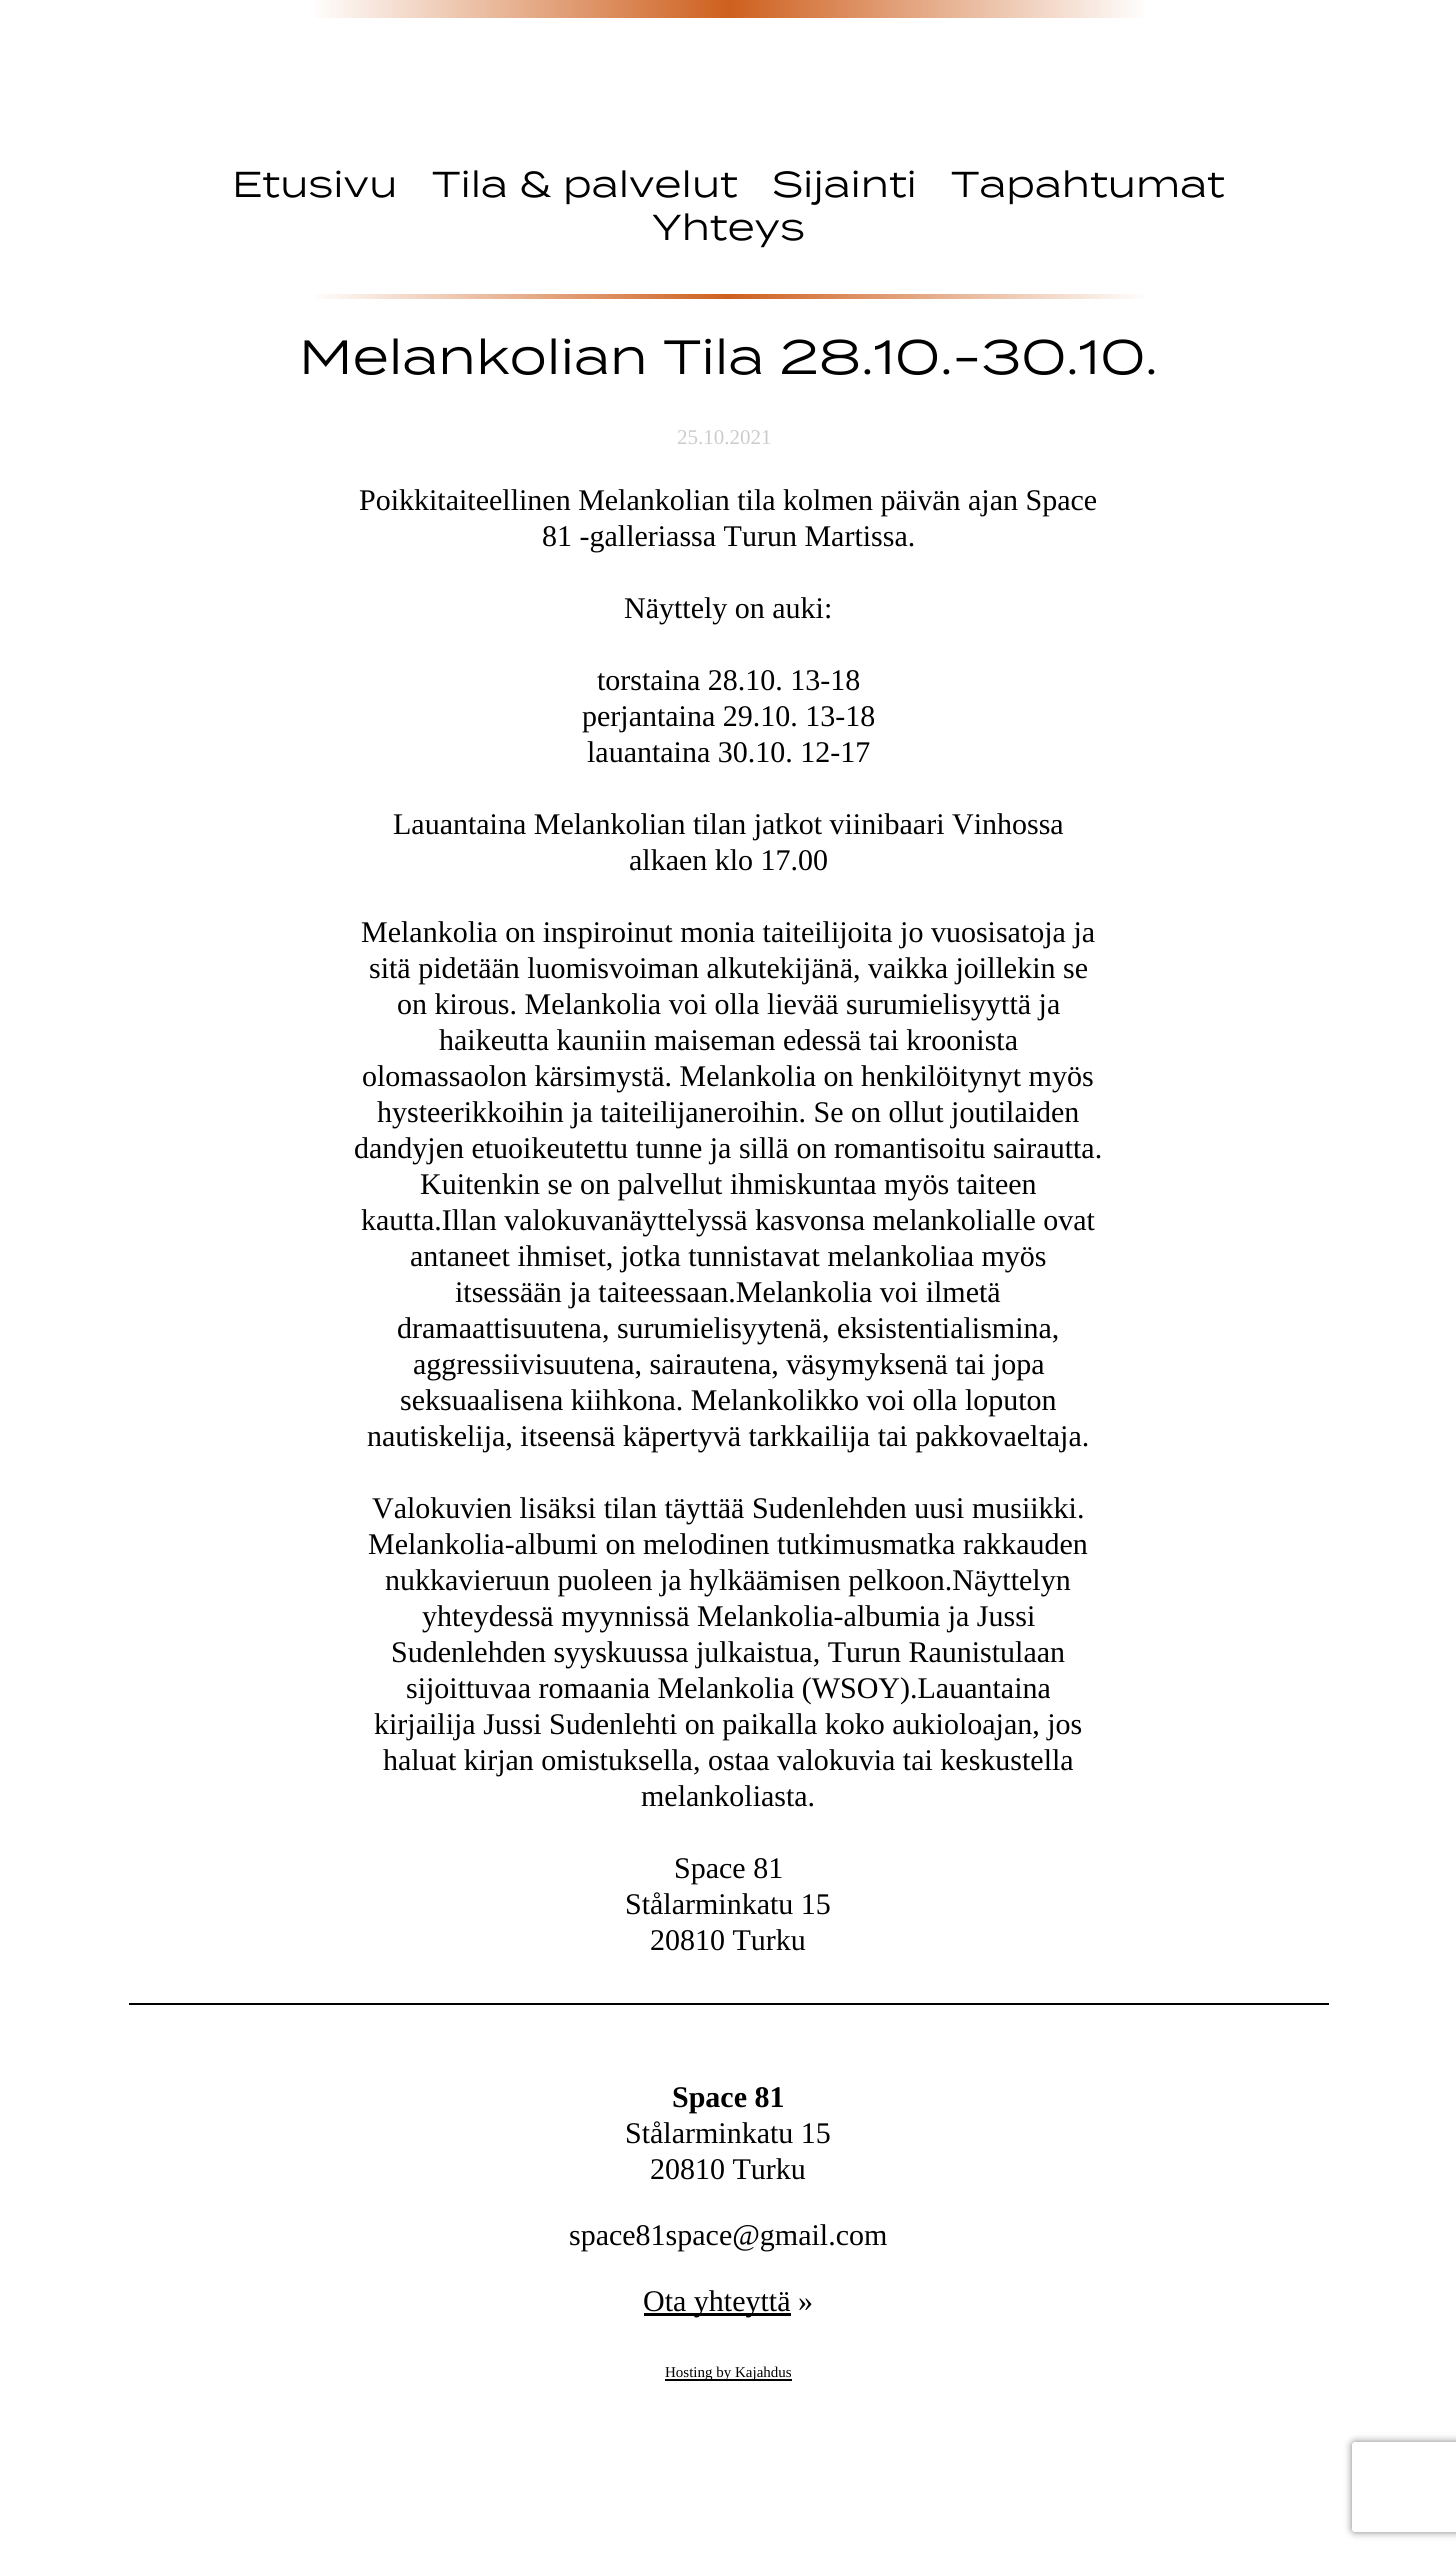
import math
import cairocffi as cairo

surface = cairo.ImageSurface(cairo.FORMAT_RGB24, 1456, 2553)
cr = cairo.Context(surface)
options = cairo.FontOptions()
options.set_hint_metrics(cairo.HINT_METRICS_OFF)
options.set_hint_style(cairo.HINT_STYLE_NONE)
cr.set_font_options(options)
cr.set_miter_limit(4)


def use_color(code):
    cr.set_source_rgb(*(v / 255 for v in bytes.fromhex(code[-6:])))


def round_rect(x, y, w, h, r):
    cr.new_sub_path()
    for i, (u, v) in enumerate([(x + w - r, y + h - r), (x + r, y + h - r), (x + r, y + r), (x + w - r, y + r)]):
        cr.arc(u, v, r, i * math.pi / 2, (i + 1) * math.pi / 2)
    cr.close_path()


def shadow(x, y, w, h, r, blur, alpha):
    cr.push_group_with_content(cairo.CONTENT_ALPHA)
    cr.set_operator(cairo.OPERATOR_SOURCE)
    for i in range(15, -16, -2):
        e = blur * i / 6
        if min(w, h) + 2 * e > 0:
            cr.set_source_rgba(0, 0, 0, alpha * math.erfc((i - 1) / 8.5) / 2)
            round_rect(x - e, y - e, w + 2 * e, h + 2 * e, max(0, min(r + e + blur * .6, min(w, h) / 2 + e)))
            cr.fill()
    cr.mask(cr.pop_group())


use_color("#ffffff")
cr.paint()
gradient = cairo.LinearGradient(129, 9, 1329, 9)
gradient.add_color_stop_rgba(0.15, 1, 1, 1, 1)
gradient.add_color_stop_rgba(0.5, 0.808, 0.376, 0.118, 1)
gradient.add_color_stop_rgba(0.85, 1, 1, 1, 1)
cr.set_source(gradient)
cr.rectangle(314, 0, 830, 18)
cr.fill()
cr.select_font_face("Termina")
cr.set_font_size(36)
use_color("#000000")
cr.move_to(232, 197)
cr.show_text("Etusivu")
cr.move_to(432, 197)
cr.show_text("Tila & palvelut")
cr.move_to(772, 197)
cr.show_text("Sijainti")
cr.move_to(951, 197)
cr.show_text("Tapahtumat")
cr.move_to(652, 240)
cr.show_text("Yhteys")
gradient = cairo.LinearGradient(129, 296, 1329, 296)
gradient.add_color_stop_rgba(0.15, 1, 1, 1, 1)
gradient.add_color_stop_rgba(0.5, 0.808, 0.376, 0.118, 1)
gradient.add_color_stop_rgba(0.85, 1, 1, 1, 1)
cr.set_source(gradient)
cr.rectangle(314, 294, 830, 5)
cr.fill()
cr.set_font_size(48)
use_color("#000000")
cr.move_to(299, 374)
cr.show_text("Melankolian Tila 28.10.-30.10.")
cr.select_font_face("Liberation Serif")
cr.set_font_size(21)
use_color("#cccccc")
cr.move_to(677, 444)
cr.show_text("25.10.2021")
cr.set_font_size(30)
use_color("#000000")
cr.move_to(359, 510)
cr.show_text("Poikkitaiteellinen Melankolian tila kolmen päivän ajan Space")
cr.move_to(542, 546)
cr.show_text("81 -galleriassa Turun Martissa.")
cr.move_to(624, 618)
cr.show_text("Näyttely on auki:")
cr.move_to(597, 690)
cr.show_text("torstaina 28.10. 13-18")
cr.move_to(582, 726)
cr.show_text("perjantaina 29.10. 13-18")
cr.move_to(587, 762)
cr.show_text("lauantaina 30.10. 12-17")
cr.move_to(393, 834)
cr.show_text("Lauantaina Melankolian tilan jatkot viinibaari Vinhossa")
cr.move_to(629, 870)
cr.show_text("alkaen klo 17.00")
cr.move_to(361, 942)
cr.show_text("Melankolia on inspiroinut monia taiteilijoita jo vuosisatoja ja")
cr.move_to(369, 978)
cr.show_text("sitä pidetään luomisvoiman alkutekijänä, vaikka joillekin se")
cr.move_to(397, 1014)
cr.show_text("on kirous. Melankolia voi olla lievää surumielisyyttä ja")
cr.move_to(439, 1050)
cr.show_text("haikeutta kauniin maiseman edessä tai kroonista")
cr.move_to(362, 1086)
cr.show_text("olomassaolon kärsimystä. Melankolia on henkilöitynyt myös")
cr.move_to(377, 1122)
cr.show_text("hysteerikkoihin ja taiteilijaneroihin. Se on ollut joutilaiden")
cr.move_to(354, 1158)
cr.show_text("dandyjen etuoikeutettu tunne ja sillä on romantisoitu sairautta.")
cr.move_to(420, 1194)
cr.show_text("Kuitenkin se on palvellut ihmiskuntaa myös taiteen")
cr.move_to(361, 1230)
cr.show_text("kautta.Illan valokuvanäyttelyssä kasvonsa melankolialle ovat")
cr.move_to(410, 1266)
cr.show_text("antaneet ihmiset, jotka tunnistavat melankoliaa myös")
cr.move_to(455, 1302)
cr.show_text("itsessään ja taiteessaan.Melankolia voi ilmetä")
cr.move_to(397, 1338)
cr.show_text("dramaattisuutena, surumielisyytenä, eksistentialismina,")
cr.move_to(413, 1374)
cr.show_text("aggressiivisuutena, sairautena, väsymyksenä tai jopa")
cr.move_to(400, 1410)
cr.show_text("seksuaalisena kiihkona. Melankolikko voi olla loputon")
cr.move_to(367, 1446)
cr.show_text("nautiskelija, itseensä käpertyvä tarkkailija tai pakkovaeltaja.")
cr.move_to(372, 1518)
cr.show_text("Valokuvien lisäksi tilan täyttää Sudenlehden uusi musiikki.")
cr.move_to(368, 1554)
cr.show_text("Melankolia-albumi on melodinen tutkimusmatka rakkauden")
cr.move_to(385, 1590)
cr.show_text("nukkavieruun puoleen ja hylkäämisen pelkoon.Näyttelyn")
cr.move_to(422, 1626)
cr.show_text("yhteydessä myynnissä Melankolia-albumia ja Jussi")
cr.move_to(391, 1662)
cr.show_text("Sudenlehden syyskuussa julkaistua, Turun Raunistulaan")
cr.move_to(406, 1698)
cr.show_text("sijoittuvaa romaania Melankolia (WSOY).Lauantaina")
cr.move_to(374, 1734)
cr.show_text("kirjailija Jussi Sudenlehti on paikalla koko aukioloajan, jos")
cr.move_to(383, 1770)
cr.show_text("haluat kirjan omistuksella, ostaa valokuvia tai keskustella")
cr.move_to(641, 1806)
cr.show_text("melankoliasta.")
cr.move_to(674, 1878)
cr.show_text("Space 81")
cr.move_to(625, 1914)
cr.show_text("Stålarminkatu 15")
cr.move_to(650, 1950)
cr.show_text("20810 Turku")
cr.rectangle(129, 2003, 1200, 2)
cr.fill()
cr.select_font_face("Liberation Serif", cairo.FONT_SLANT_NORMAL, cairo.FONT_WEIGHT_BOLD)
cr.move_to(672, 2107)
cr.show_text("Space 81")
cr.select_font_face("Liberation Serif")
cr.move_to(625, 2143)
cr.show_text("Stålarminkatu 15")
cr.move_to(650, 2179)
cr.show_text("20810 Turku")
cr.move_to(569, 2245)
cr.show_text("space81space@gmail.com")
cr.rectangle(644, 2313, 147, 3)
cr.fill()
cr.move_to(643, 2311)
cr.show_text("Ota yhteyttä »")
cr.rectangle(665, 2379, 127, 2)
cr.fill()
cr.set_font_size(15)
cr.move_to(665, 2377)
cr.show_text("Hosting by Kajahdus")
cr.save()
cr.set_fill_rule(cairo.FILL_RULE_EVEN_ODD)
cr.new_path()
cr.move_to(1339, 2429)
cr.line_to(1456, 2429)
cr.line_to(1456, 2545)
cr.line_to(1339, 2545)
cr.close_path()
cr.move_to(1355, 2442)
cr.line_to(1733, 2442)
cr.curve_to(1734.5, 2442, 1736, 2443.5, 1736, 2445)
cr.line_to(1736, 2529)
cr.curve_to(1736, 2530.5, 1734.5, 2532, 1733, 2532)
cr.line_to(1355, 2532)
cr.curve_to(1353.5, 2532, 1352, 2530.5, 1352, 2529)
cr.line_to(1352, 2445)
cr.curve_to(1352, 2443.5, 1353.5, 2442, 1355, 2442)
cr.close_path()
cr.clip()
use_color("#808080")
shadow(1352, 2442, 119, 90, 3, 4, 1)
cr.restore()
surface.write_to_png("result.png")
